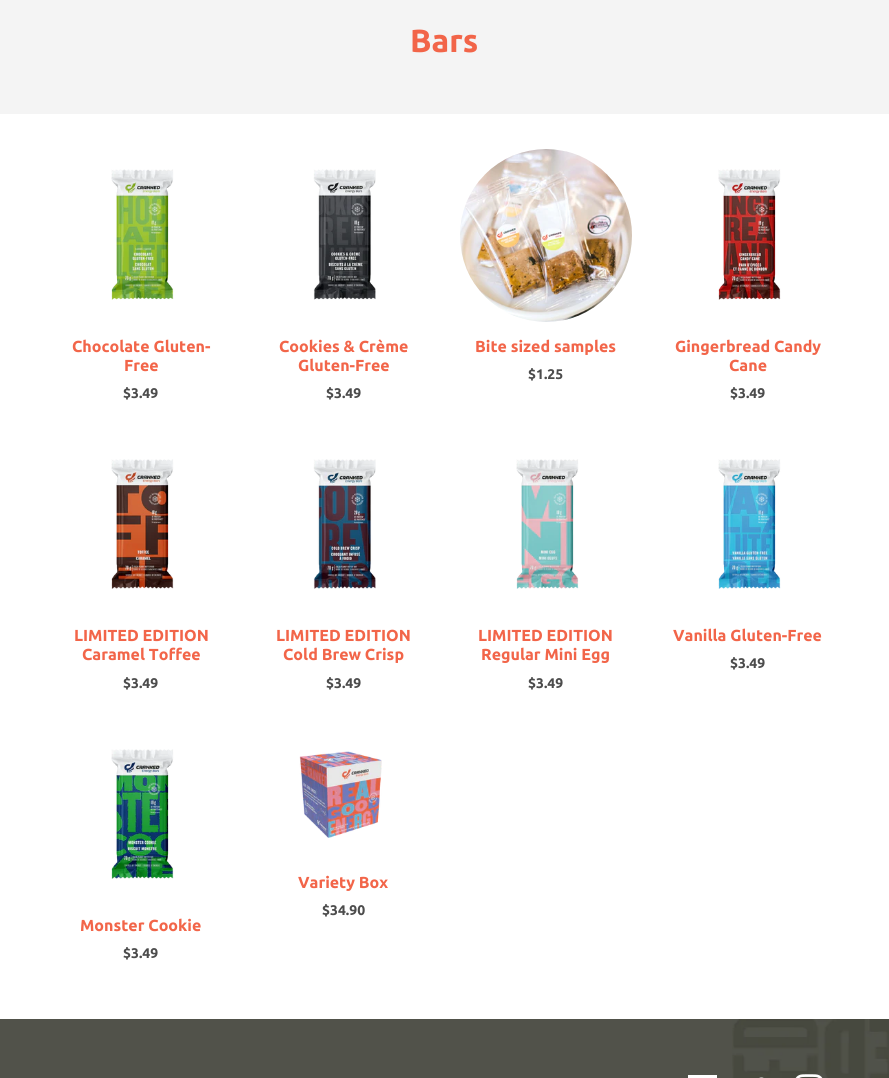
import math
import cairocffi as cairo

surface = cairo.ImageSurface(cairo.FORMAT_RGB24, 889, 1078)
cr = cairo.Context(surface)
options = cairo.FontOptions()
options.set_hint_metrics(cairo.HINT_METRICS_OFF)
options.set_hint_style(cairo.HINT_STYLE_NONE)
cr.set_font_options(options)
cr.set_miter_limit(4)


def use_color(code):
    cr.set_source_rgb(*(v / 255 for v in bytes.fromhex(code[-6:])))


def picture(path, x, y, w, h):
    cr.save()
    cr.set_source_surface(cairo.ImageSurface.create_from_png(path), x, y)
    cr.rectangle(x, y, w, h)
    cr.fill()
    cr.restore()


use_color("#ffffff")
cr.paint()
use_color("#f4f4f4")
cr.rectangle(0, 0, 889, 114)
cr.fill()
cr.select_font_face("Ubuntu", cairo.FONT_SLANT_NORMAL, cairo.FONT_WEIGHT_BOLD)
cr.set_font_size(32)
use_color("#f26549")
cr.move_to(410, 52)
cr.show_text("Bars")
picture("img1.png", 111, 169, 63, 131)
cr.set_font_size(16)
cr.move_to(72, 352)
cr.show_text("Chocolate Gluten-")
cr.move_to(124, 371)
cr.show_text("Free")
cr.set_font_size(14)
use_color("#4c4c4c")
cr.move_to(123, 398)
cr.show_text("$3.49")
picture("img2.png", 313, 169, 63, 131)
cr.set_font_size(16)
use_color("#f26549")
cr.move_to(279, 352)
cr.show_text("Cookies & Crème")
cr.move_to(298, 371)
cr.show_text("Gluten-Free")
cr.set_font_size(14)
use_color("#4c4c4c")
cr.move_to(326, 398)
cr.show_text("$3.49")
picture("img3.png", 460, 149, 172, 173)
cr.set_font_size(16)
use_color("#f26549")
cr.move_to(475, 352)
cr.show_text("Bite sized samples")
cr.set_font_size(14)
use_color("#4c4c4c")
cr.move_to(528, 379)
cr.show_text("$1.25")
picture("img4.png", 718, 169, 63, 131)
cr.set_font_size(16)
use_color("#f26549")
cr.move_to(675, 352)
cr.show_text("Gingerbread Candy")
cr.move_to(729, 371)
cr.show_text("Cane")
cr.set_font_size(14)
use_color("#4c4c4c")
cr.move_to(730, 398)
cr.show_text("$3.49")
picture("img5.png", 111, 459, 63, 130)
cr.set_font_size(16)
use_color("#f26549")
cr.move_to(74, 641)
cr.show_text("LIMITED EDITION")
cr.move_to(82, 660)
cr.show_text("Caramel Toffee")
cr.set_font_size(14)
use_color("#4c4c4c")
cr.move_to(123, 688)
cr.show_text("$3.49")
picture("img6.png", 313, 459, 63, 130)
cr.set_font_size(16)
use_color("#f26549")
cr.move_to(276, 641)
cr.show_text("LIMITED EDITION")
cr.move_to(283, 660)
cr.show_text("Cold Brew Crisp")
cr.set_font_size(14)
use_color("#4c4c4c")
cr.move_to(326, 688)
cr.show_text("$3.49")
picture("img7.png", 516, 459, 63, 130)
cr.set_font_size(16)
use_color("#f26549")
cr.move_to(478, 641)
cr.show_text("LIMITED EDITION")
cr.move_to(481, 660)
cr.show_text("Regular Mini Egg")
cr.set_font_size(14)
use_color("#4c4c4c")
cr.move_to(528, 688)
cr.show_text("$3.49")
picture("img8.png", 718, 459, 63, 130)
cr.set_font_size(16)
use_color("#f26549")
cr.move_to(673, 641)
cr.show_text("Vanilla Gluten-Free")
cr.set_font_size(14)
use_color("#4c4c4c")
cr.move_to(730, 668)
cr.show_text("$3.49")
picture("img9.png", 299, 751, 83, 87)
cr.set_font_size(16)
use_color("#f26549")
cr.move_to(298, 888)
cr.show_text("Variety Box")
cr.set_font_size(14)
use_color("#4c4c4c")
cr.move_to(322, 915)
cr.show_text("$34.90")
picture("img10.png", 111, 749, 63, 130)
cr.set_font_size(16)
use_color("#f26549")
cr.move_to(80, 931)
cr.show_text("Monster Cookie")
cr.set_font_size(14)
use_color("#4c4c4c")
cr.move_to(123, 958)
cr.show_text("$3.49")
use_color("#51524a")
cr.rectangle(0, 1019, 889, 59)
cr.fill()
picture("img11.png", 732, 1019, 157, 59)
use_color("#ffffff")
cr.rectangle(688, 1075, 29, 3)
cr.fill()
picture("img12.png", 759, 1077, 5, 1)
picture("img13.png", 795, 1074, 28, 4)
surface.write_to_png("result.png")
